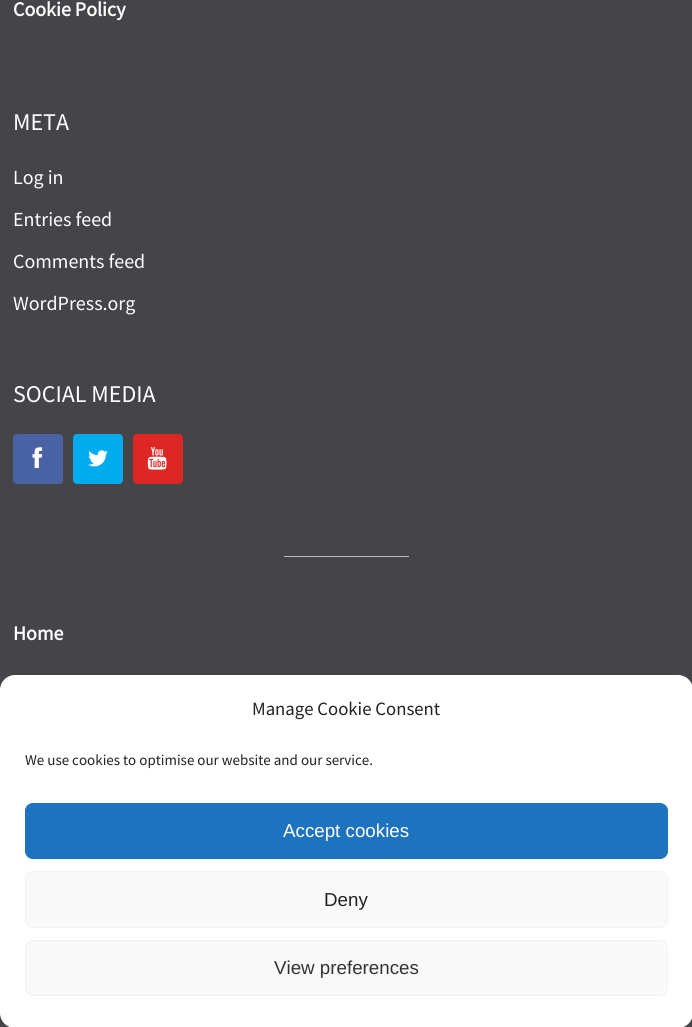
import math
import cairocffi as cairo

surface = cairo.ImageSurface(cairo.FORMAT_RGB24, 692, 1027)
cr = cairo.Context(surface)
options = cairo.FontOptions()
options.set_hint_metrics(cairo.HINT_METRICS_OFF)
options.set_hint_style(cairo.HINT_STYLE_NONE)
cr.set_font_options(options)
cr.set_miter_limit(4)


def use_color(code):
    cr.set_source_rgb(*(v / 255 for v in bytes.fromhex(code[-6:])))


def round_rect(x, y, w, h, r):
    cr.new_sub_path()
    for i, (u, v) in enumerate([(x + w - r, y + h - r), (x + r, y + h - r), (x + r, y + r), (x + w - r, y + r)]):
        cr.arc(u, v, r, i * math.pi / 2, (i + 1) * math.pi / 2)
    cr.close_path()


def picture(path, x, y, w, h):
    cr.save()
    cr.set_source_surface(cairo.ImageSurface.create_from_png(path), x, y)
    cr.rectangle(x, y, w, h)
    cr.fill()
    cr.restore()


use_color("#444449")
cr.paint()
cr.select_font_face("Source Sans Pro", cairo.FONT_SLANT_NORMAL, cairo.FONT_WEIGHT_BOLD)
cr.set_font_size(20)
use_color("#ffffff")
cr.move_to(13, 16)
cr.show_text("Cookie Policy")
cr.select_font_face("Source Sans Pro")
cr.set_font_size(24)
cr.move_to(13, 130)
cr.show_text("META")
cr.set_font_size(20)
cr.move_to(13, 184)
cr.show_text("Log in")
cr.move_to(13, 226)
cr.show_text("Entries feed")
cr.move_to(13, 268)
cr.show_text("Comments feed")
cr.move_to(13, 310)
cr.show_text("WordPress.org")
cr.set_font_size(24)
cr.move_to(13, 402)
cr.show_text("SOCIAL MEDIA")
use_color("#4862a3")
round_rect(13, 434, 50, 50, 4)
cr.fill()
picture("img1.png", 32, 447, 11, 21)
use_color("#00acee")
round_rect(73, 434, 50, 50, 4)
cr.fill()
picture("img2.png", 88, 450, 20, 17)
use_color("#dc2725")
round_rect(133, 434, 50, 50, 4)
cr.fill()
picture("img3.png", 147, 447, 20, 23)
use_color("#bbbbbb")
cr.rectangle(284, 556, 125, 1)
cr.fill()
cr.select_font_face("Source Sans Pro", cairo.FONT_SLANT_NORMAL, cairo.FONT_WEIGHT_BOLD)
cr.set_font_size(20)
use_color("#ffffff")
cr.move_to(13, 640)
cr.show_text("Home")
round_rect(0, 675, 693, 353, 15)
cr.fill()
cr.select_font_face("Source Sans Pro")
cr.set_font_size(18.75)
use_color("#222222")
cr.move_to(252, 715)
cr.show_text("Manage Cookie Consent")
cr.set_font_size(15)
cr.move_to(25, 765)
cr.show_text("We use cookies to optimise our website and our service.")
use_color("#1e73be")
round_rect(25.5, 803.5, 642, 55, 7.5)
cr.fill_preserve()
cr.set_line_width(1)
cr.stroke()
cr.select_font_face("Liberation Sans")
cr.set_font_size(18.75)
use_color("#ffffff")
cr.move_to(283, 837)
cr.show_text("Accept cookies")
use_color("#f9f9f9")
round_rect(25.5, 871.5, 642, 56, 7.5)
cr.fill_preserve()
use_color("#f2f2f2")
cr.stroke()
use_color("#222222")
cr.move_to(324, 906)
cr.show_text("Deny")
use_color("#f9f9f9")
round_rect(25.5, 940.5, 642, 55, 7.5)
cr.fill_preserve()
use_color("#f2f2f2")
cr.stroke()
use_color("#333333")
cr.move_to(274, 974)
cr.show_text("View preferences")
surface.write_to_png("result.png")
